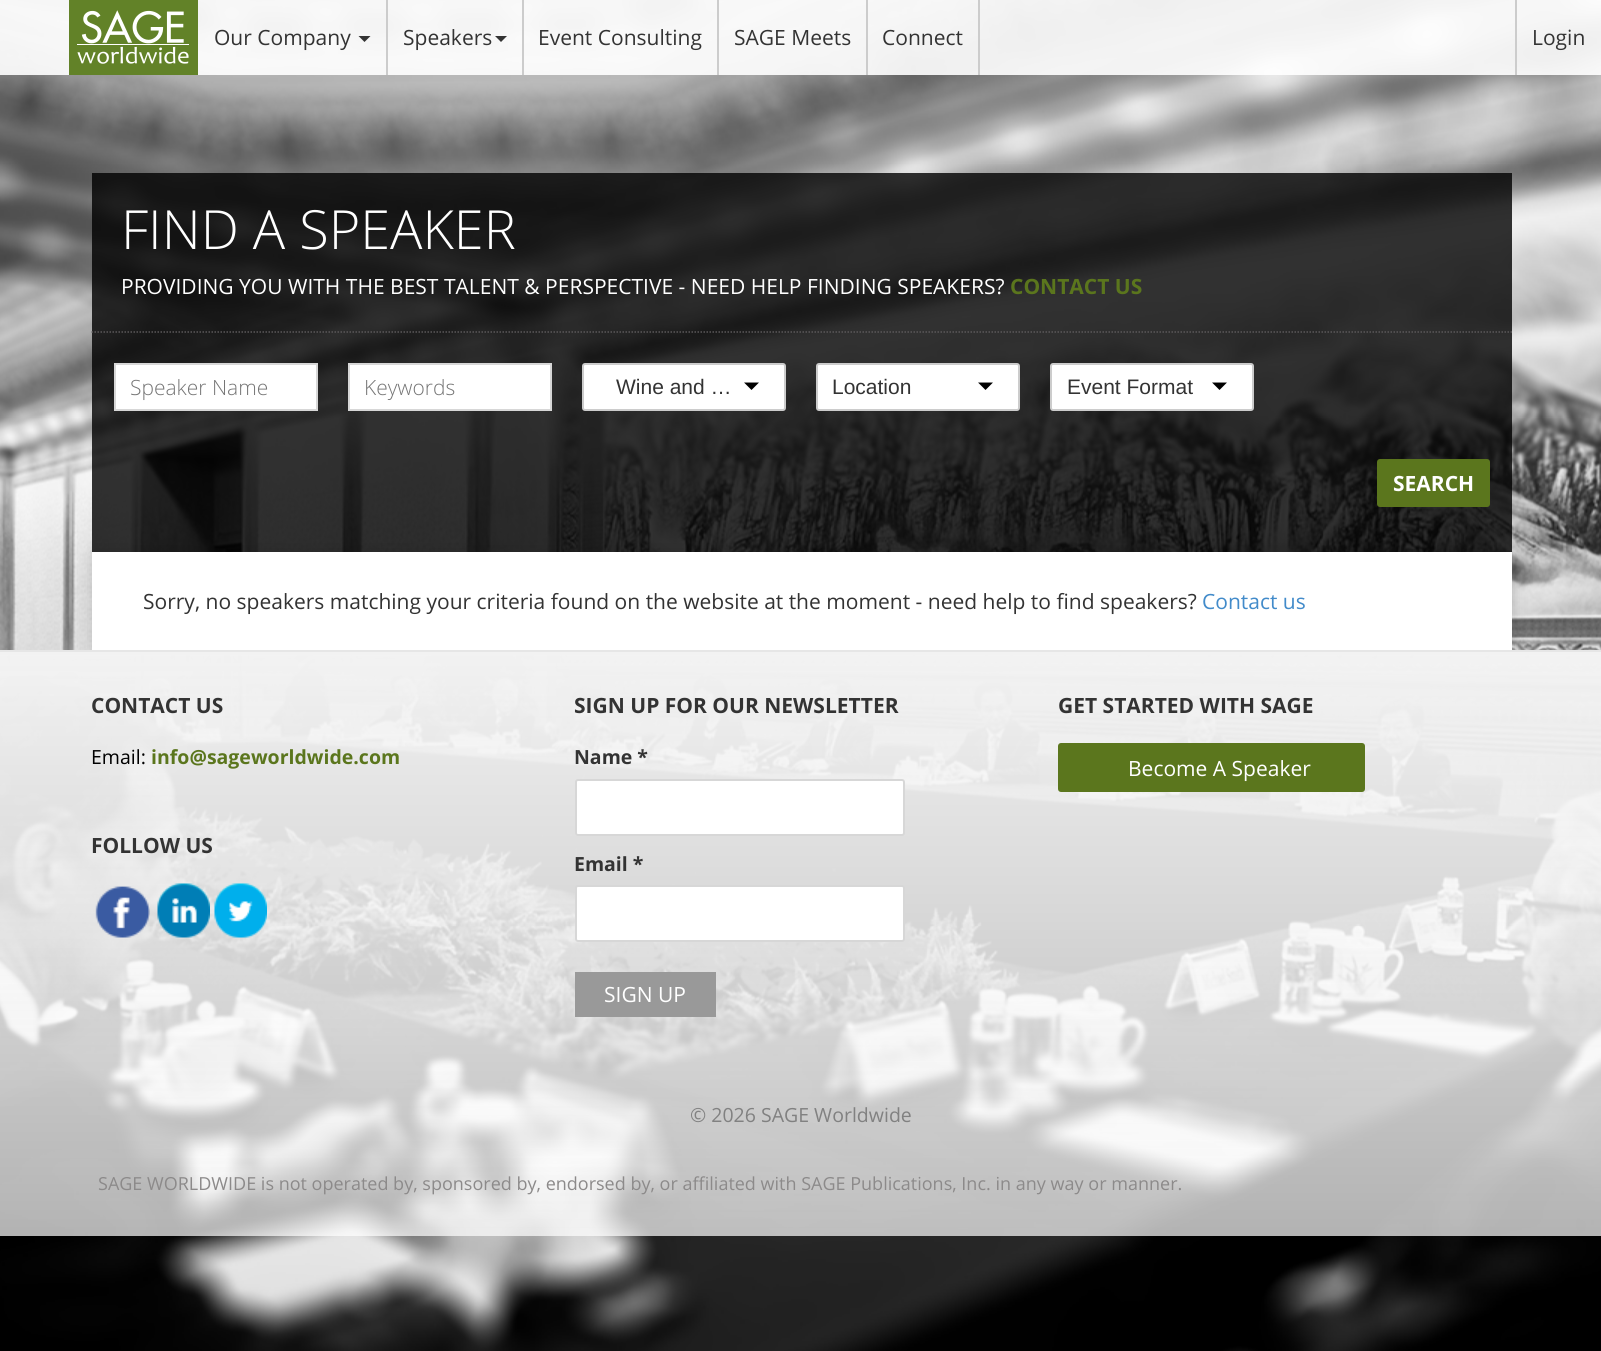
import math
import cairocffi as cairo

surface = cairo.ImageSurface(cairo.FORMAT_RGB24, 1601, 1351)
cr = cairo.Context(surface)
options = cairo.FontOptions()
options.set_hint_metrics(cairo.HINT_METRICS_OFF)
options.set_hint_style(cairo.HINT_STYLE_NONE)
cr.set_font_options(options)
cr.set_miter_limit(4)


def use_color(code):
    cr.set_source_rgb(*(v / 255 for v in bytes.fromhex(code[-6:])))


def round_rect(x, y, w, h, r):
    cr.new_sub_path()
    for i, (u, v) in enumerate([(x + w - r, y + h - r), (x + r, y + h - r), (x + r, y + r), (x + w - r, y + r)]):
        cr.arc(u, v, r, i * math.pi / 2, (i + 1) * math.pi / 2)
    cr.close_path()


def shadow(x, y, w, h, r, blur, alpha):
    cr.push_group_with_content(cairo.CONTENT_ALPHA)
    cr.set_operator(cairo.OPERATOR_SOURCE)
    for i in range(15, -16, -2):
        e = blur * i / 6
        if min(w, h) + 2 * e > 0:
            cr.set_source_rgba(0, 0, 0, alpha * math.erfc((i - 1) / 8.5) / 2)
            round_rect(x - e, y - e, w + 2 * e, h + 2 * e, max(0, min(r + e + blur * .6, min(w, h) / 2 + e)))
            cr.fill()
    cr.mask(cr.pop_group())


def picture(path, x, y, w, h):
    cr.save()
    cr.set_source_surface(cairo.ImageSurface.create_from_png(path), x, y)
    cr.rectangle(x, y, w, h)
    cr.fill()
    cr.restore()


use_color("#ffffff")
cr.paint()
picture("img2.png", 0, 0, 1601, 1351)
cr.set_source_rgba(1, 1, 1, 0.9)
cr.rectangle(0, 0, 1601, 75)
cr.fill()
picture("img1.png", 69, 0, 129, 75)
use_color("#cccccc")
cr.rectangle(386, 0, 2, 75)
cr.fill()
cr.select_font_face("Open Sans")
cr.set_font_size(21)
use_color("#333333")
cr.move_to(214, 45)
cr.show_text("Our Company")
cr.new_path()
cr.move_to(358.5, 36)
cr.line_to(370.5, 36)
cr.line_to(364.5, 42)
cr.close_path()
cr.fill()
use_color("#cccccc")
cr.rectangle(522, 0, 2, 75)
cr.fill()
use_color("#333333")
cr.move_to(403, 45)
cr.show_text("Speakers")
cr.new_path()
cr.move_to(495, 36)
cr.line_to(507, 36)
cr.line_to(501, 42)
cr.close_path()
cr.fill()
use_color("#cccccc")
cr.rectangle(717, 0, 2, 75)
cr.fill()
use_color("#333333")
cr.move_to(538, 45)
cr.show_text("Event Consulting")
use_color("#cccccc")
cr.rectangle(866, 0, 2, 75)
cr.fill()
use_color("#333333")
cr.move_to(734, 45)
cr.show_text("SAGE Meets")
use_color("#cccccc")
cr.rectangle(978, 0, 2, 75)
cr.fill()
use_color("#333333")
cr.move_to(882, 45)
cr.show_text("Connect")
use_color("#cccccc")
cr.rectangle(1515, 0, 2, 75)
cr.fill()
use_color("#333333")
cr.move_to(1532, 45)
cr.show_text("Login")
cr.set_source_rgba(0, 0, 0, 0.8)
cr.rectangle(92, 173, 1420, 379)
cr.fill()
cr.select_font_face("Open Sans Light")
cr.set_font_size(54)
use_color("#ffffff")
cr.move_to(121, 249)
cr.show_text("FIND A SPEAKER")
cr.select_font_face("Open Sans")
cr.set_font_size(21)
cr.move_to(121, 294)
cr.show_text("PROVIDING YOU WITH THE BEST TALENT & PERSPECTIVE - NEED HELP FINDING SPEAKERS?")
cr.select_font_face("Open Sans", cairo.FONT_SLANT_NORMAL, cairo.FONT_WEIGHT_BOLD)
use_color("#5b761d")
cr.move_to(1010, 294)
cr.show_text("CONTACT US")
cr.new_path()
cr.move_to(91.5, 332)
cr.line_to(1512, 332)
use_color("#5a5759")
cr.set_line_width(1.5)
cr.set_dash([1.5, 1.5])
cr.stroke()
use_color("#ffffff")
cr.rectangle(115, 364, 202, 46)
cr.fill_preserve()
use_color("#d7d7d7")
cr.set_line_width(2)
cr.set_dash([])
cr.stroke()
cr.select_font_face("Open Sans Light")
use_color("#757575")
cr.move_to(130, 395)
cr.show_text("Speaker Name")
use_color("#ffffff")
cr.rectangle(349, 364, 202, 46)
cr.fill_preserve()
use_color("#d7d7d7")
cr.stroke()
use_color("#757575")
cr.move_to(364, 395)
cr.show_text("Keywords")
use_color("#ffffff")
round_rect(583, 364, 202, 46, 2)
cr.fill_preserve()
use_color("#cccccc")
cr.stroke()
cr.select_font_face("Liberation Sans")
use_color("#333333")
cr.move_to(616, 394)
cr.show_text("Wine and …")
use_color("#000000")
cr.new_path()
cr.move_to(744, 382.5)
cr.line_to(759, 382.5)
cr.line_to(751.5, 390)
cr.close_path()
cr.fill()
use_color("#ffffff")
round_rect(817, 364, 202, 46, 2)
cr.fill_preserve()
use_color("#cccccc")
cr.stroke()
use_color("#333333")
cr.move_to(832, 394)
cr.show_text("Location")
use_color("#000000")
cr.new_path()
cr.move_to(978, 382.5)
cr.line_to(993, 382.5)
cr.line_to(985.5, 390)
cr.close_path()
cr.fill()
use_color("#ffffff")
round_rect(1051, 364, 202, 46, 2)
cr.fill_preserve()
use_color("#cccccc")
cr.stroke()
use_color("#333333")
cr.move_to(1067, 394)
cr.show_text("Event Format")
use_color("#000000")
cr.new_path()
cr.move_to(1212, 382.5)
cr.line_to(1227, 382.5)
cr.line_to(1219.5, 390)
cr.close_path()
cr.fill()
use_color("#5b761d")
round_rect(1377, 459, 113, 48, 3)
cr.fill()
cr.select_font_face("Open Sans", cairo.FONT_SLANT_NORMAL, cairo.FONT_WEIGHT_BOLD)
use_color("#ffffff")
cr.move_to(1393, 491)
cr.show_text("SEARCH")
cr.save()
cr.rectangle(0, 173, 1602, 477)
cr.clip()
use_color("#000000")
shadow(93, 554, 1421, 97, 0, 7.5, 0.15)
cr.restore()
cr.rectangle(92, 552, 1420, 98)
cr.fill()
cr.select_font_face("Open Sans")
use_color("#333333")
cr.move_to(143, 609)
cr.show_text("Sorry, no speakers matching your criteria found on the website at the moment - need help to find speakers?")
use_color("#428bca")
cr.move_to(1202, 609)
cr.show_text("Contact us")
use_color("#e6e6e6")
cr.rectangle(0, 650, 1601, 2)
cr.fill()
cr.select_font_face("Open Sans", cairo.FONT_SLANT_NORMAL, cairo.FONT_WEIGHT_BOLD)
use_color("#333333")
cr.move_to(91, 713)
cr.show_text("CONTACT US")
cr.select_font_face("Open Sans")
cr.set_font_size(19.5)
use_color("#000000")
cr.move_to(91, 764)
cr.show_text("Email:")
cr.select_font_face("Open Sans", cairo.FONT_SLANT_NORMAL, cairo.FONT_WEIGHT_BOLD)
use_color("#5b761d")
cr.move_to(151, 764)
cr.show_text("info@sageworldwide.com")
cr.set_font_size(21)
use_color("#333333")
cr.move_to(91, 853)
cr.show_text("FOLLOW US")
picture("img3.png", 95, 886, 55, 52)
picture("img4.png", 157, 883, 53, 55)
picture("img5.png", 214, 883, 53, 55)
cr.move_to(574, 713)
cr.show_text("SIGN UP FOR OUR NEWSLETTER")
cr.set_font_size(19.5)
cr.move_to(574, 764)
cr.show_text("Name *")
use_color("#ffffff")
round_rect(576, 780, 328, 55, 2)
cr.fill_preserve()
use_color("#d7d7d7")
cr.stroke()
use_color("#333333")
cr.move_to(574, 871)
cr.show_text("Email *")
use_color("#ffffff")
round_rect(576, 886, 328, 55, 2)
cr.fill_preserve()
use_color("#d7d7d7")
cr.stroke()
use_color("#999999")
cr.rectangle(575, 972, 141, 45)
cr.fill()
cr.select_font_face("Open Sans")
cr.set_font_size(21)
use_color("#ffffff")
cr.move_to(604, 1002)
cr.show_text("SIGN UP")
cr.select_font_face("Open Sans", cairo.FONT_SLANT_NORMAL, cairo.FONT_WEIGHT_BOLD)
use_color("#333333")
cr.move_to(1058, 713)
cr.show_text("GET STARTED WITH SAGE")
use_color("#5b761d")
round_rect(1058, 743, 307, 49, 3)
cr.fill()
cr.select_font_face("Open Sans")
use_color("#ffffff")
cr.move_to(1128, 776)
cr.show_text("Become A Speaker")
cr.set_font_size(19.5)
use_color("#818181")
cr.move_to(690, 1122)
cr.show_text("© 2026 SAGE Worldwide")
cr.set_font_size(18)
use_color("#8c8a8a")
cr.move_to(98, 1190)
cr.show_text("SAGE WORLDWIDE is not operated by, sponsored by, endorsed by, or affiliated with SAGE Publications, Inc. in any way or manner.")
surface.write_to_png("result.png")
